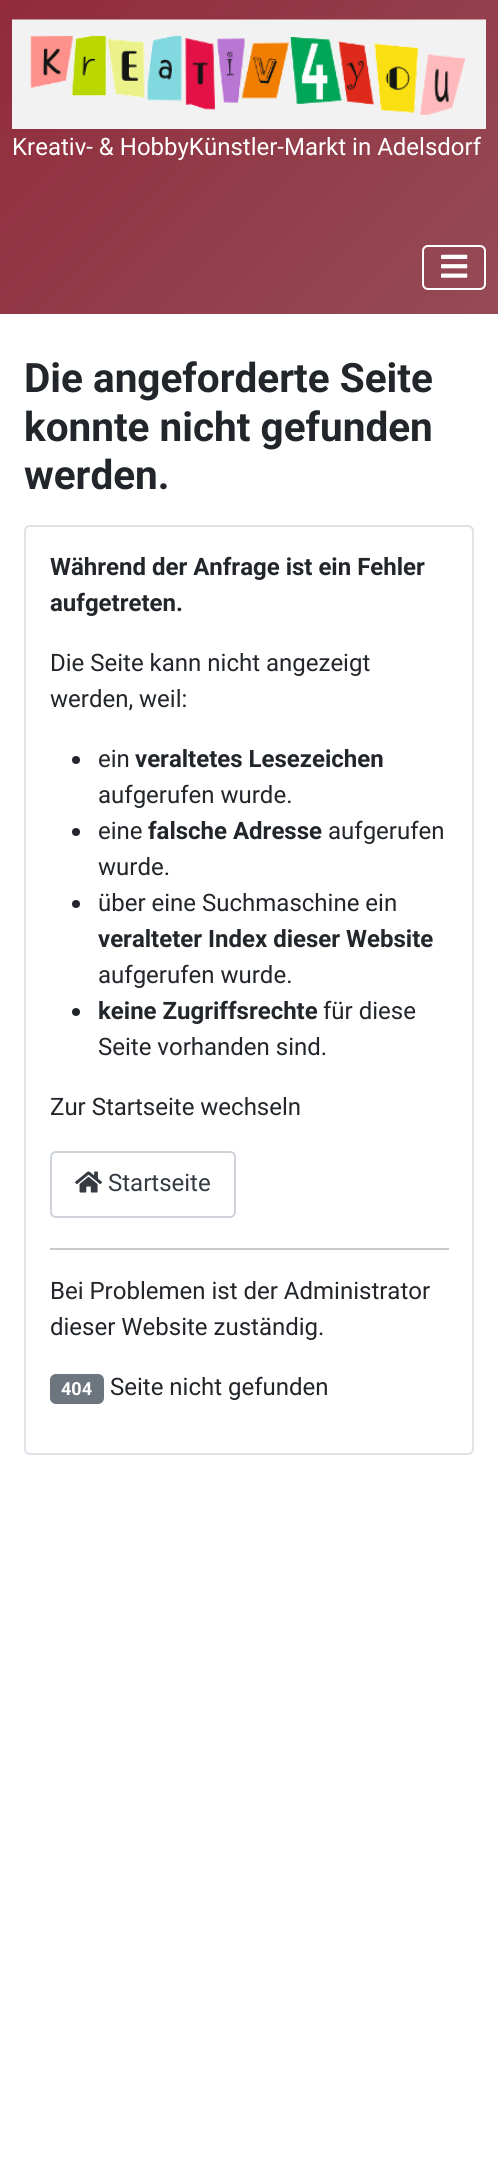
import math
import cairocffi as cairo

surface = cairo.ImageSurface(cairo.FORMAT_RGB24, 498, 2167)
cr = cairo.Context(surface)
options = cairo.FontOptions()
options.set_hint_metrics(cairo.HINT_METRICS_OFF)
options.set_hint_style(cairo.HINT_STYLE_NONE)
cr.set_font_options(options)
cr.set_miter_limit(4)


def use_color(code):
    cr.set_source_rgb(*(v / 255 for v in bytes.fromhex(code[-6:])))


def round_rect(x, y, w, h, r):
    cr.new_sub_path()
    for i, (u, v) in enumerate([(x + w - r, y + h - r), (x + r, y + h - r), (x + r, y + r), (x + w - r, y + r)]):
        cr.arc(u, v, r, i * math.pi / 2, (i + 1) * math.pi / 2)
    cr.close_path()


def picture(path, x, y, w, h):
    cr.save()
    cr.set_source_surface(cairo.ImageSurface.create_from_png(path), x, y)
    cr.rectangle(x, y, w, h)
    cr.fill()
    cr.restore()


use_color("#ffffff")
cr.paint()
gradient = cairo.LinearGradient(46, -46, 452, 360)
gradient.add_color_stop_rgba(0, 0.569, 0.169, 0.231, 1)
gradient.add_color_stop_rgba(1, 0.584, 0.294, 0.337, 1)
cr.set_source(gradient)
cr.rectangle(0, 0, 498, 314)
cr.fill()
picture("img1.png", 12, 19, 474, 110)
cr.select_font_face("Roboto")
cr.set_font_size(24)
use_color("#ffffff")
cr.move_to(12, 155)
cr.show_text("Kreativ- & HobbyKünstler-Markt in Adelsdorf")
round_rect(423, 246, 62, 43, 5)
cr.stroke()
picture("img2.png", 441, 254, 27, 24)
cr.select_font_face("Roboto", cairo.FONT_SLANT_NORMAL, cairo.FONT_WEIGHT_BOLD)
cr.set_font_size(40.5)
use_color("#22262a")
cr.move_to(24, 392)
cr.show_text("Die angeforderte Seite")
cr.move_to(24, 441)
cr.show_text("konnte nicht gefunden")
cr.move_to(24, 489)
cr.show_text("werden.")
round_rect(25, 526, 448, 928, 5)
use_color("#dfe3e7")
cr.stroke()
cr.set_font_size(24)
use_color("#22262a")
cr.move_to(50, 575)
cr.show_text("Während der Anfrage ist ein Fehler")
cr.move_to(50, 611)
cr.show_text("aufgetreten.")
cr.select_font_face("Roboto")
cr.move_to(50, 671)
cr.show_text("Die Seite kann nicht angezeigt")
cr.move_to(50, 707)
cr.show_text("werden, weil:")
cr.new_path()
cr.arc(76, 760, 4, 0, 2 * math.pi)
cr.fill()
cr.move_to(98, 767)
cr.show_text("ein")
cr.select_font_face("Roboto", cairo.FONT_SLANT_NORMAL, cairo.FONT_WEIGHT_BOLD)
cr.move_to(135, 767)
cr.show_text("veraltetes Lesezeichen")
cr.select_font_face("Roboto")
cr.move_to(98, 803)
cr.show_text("aufgerufen wurde.")
cr.new_path()
cr.arc(76, 832, 4, 0, 2 * math.pi)
cr.fill()
cr.move_to(98, 839)
cr.show_text("eine")
cr.select_font_face("Roboto", cairo.FONT_SLANT_NORMAL, cairo.FONT_WEIGHT_BOLD)
cr.move_to(148, 839)
cr.show_text("falsche Adresse")
cr.select_font_face("Roboto")
cr.move_to(328, 839)
cr.show_text("aufgerufen")
cr.move_to(98, 875)
cr.show_text("wurde.")
cr.new_path()
cr.arc(76, 904, 4, 0, 2 * math.pi)
cr.fill()
cr.move_to(98, 911)
cr.show_text("über eine Suchmaschine ein")
cr.select_font_face("Roboto", cairo.FONT_SLANT_NORMAL, cairo.FONT_WEIGHT_BOLD)
cr.move_to(98, 947)
cr.show_text("veralteter Index dieser Website")
cr.select_font_face("Roboto")
cr.move_to(98, 983)
cr.show_text("aufgerufen wurde.")
cr.new_path()
cr.arc(76, 1012, 4, 0, 2 * math.pi)
cr.fill()
cr.select_font_face("Roboto", cairo.FONT_SLANT_NORMAL, cairo.FONT_WEIGHT_BOLD)
cr.move_to(98, 1019)
cr.show_text("keine Zugriffsrechte")
cr.select_font_face("Roboto")
cr.move_to(323, 1019)
cr.show_text("für diese")
cr.move_to(98, 1055)
cr.show_text("Seite vorhanden sind.")
cr.move_to(50, 1115)
cr.show_text("Zur Startseite wechseln")
round_rect(51, 1152, 184, 65, 5)
use_color("#ced4da")
cr.stroke()
picture("img3.png", 75, 1171, 27, 22)
use_color("#353b41")
cr.move_to(108, 1191)
cr.show_text("Startseite")
use_color("#c8c9ca")
cr.rectangle(50, 1248, 399, 2)
cr.fill()
use_color("#22262a")
cr.move_to(50, 1299)
cr.show_text("Bei Problemen ist der Administrator")
cr.move_to(50, 1335)
cr.show_text("dieser Website zuständig.")
use_color("#6d757e")
round_rect(50, 1374, 54, 30, 6)
cr.fill()
cr.select_font_face("Roboto", cairo.FONT_SLANT_NORMAL, cairo.FONT_WEIGHT_BOLD)
cr.set_font_size(18)
use_color("#ffffff")
cr.move_to(61, 1395)
cr.show_text("404")
cr.select_font_face("Roboto")
cr.set_font_size(24)
use_color("#22262a")
cr.move_to(110, 1395)
cr.show_text("Seite nicht gefunden")
surface.write_to_png("result.png")
